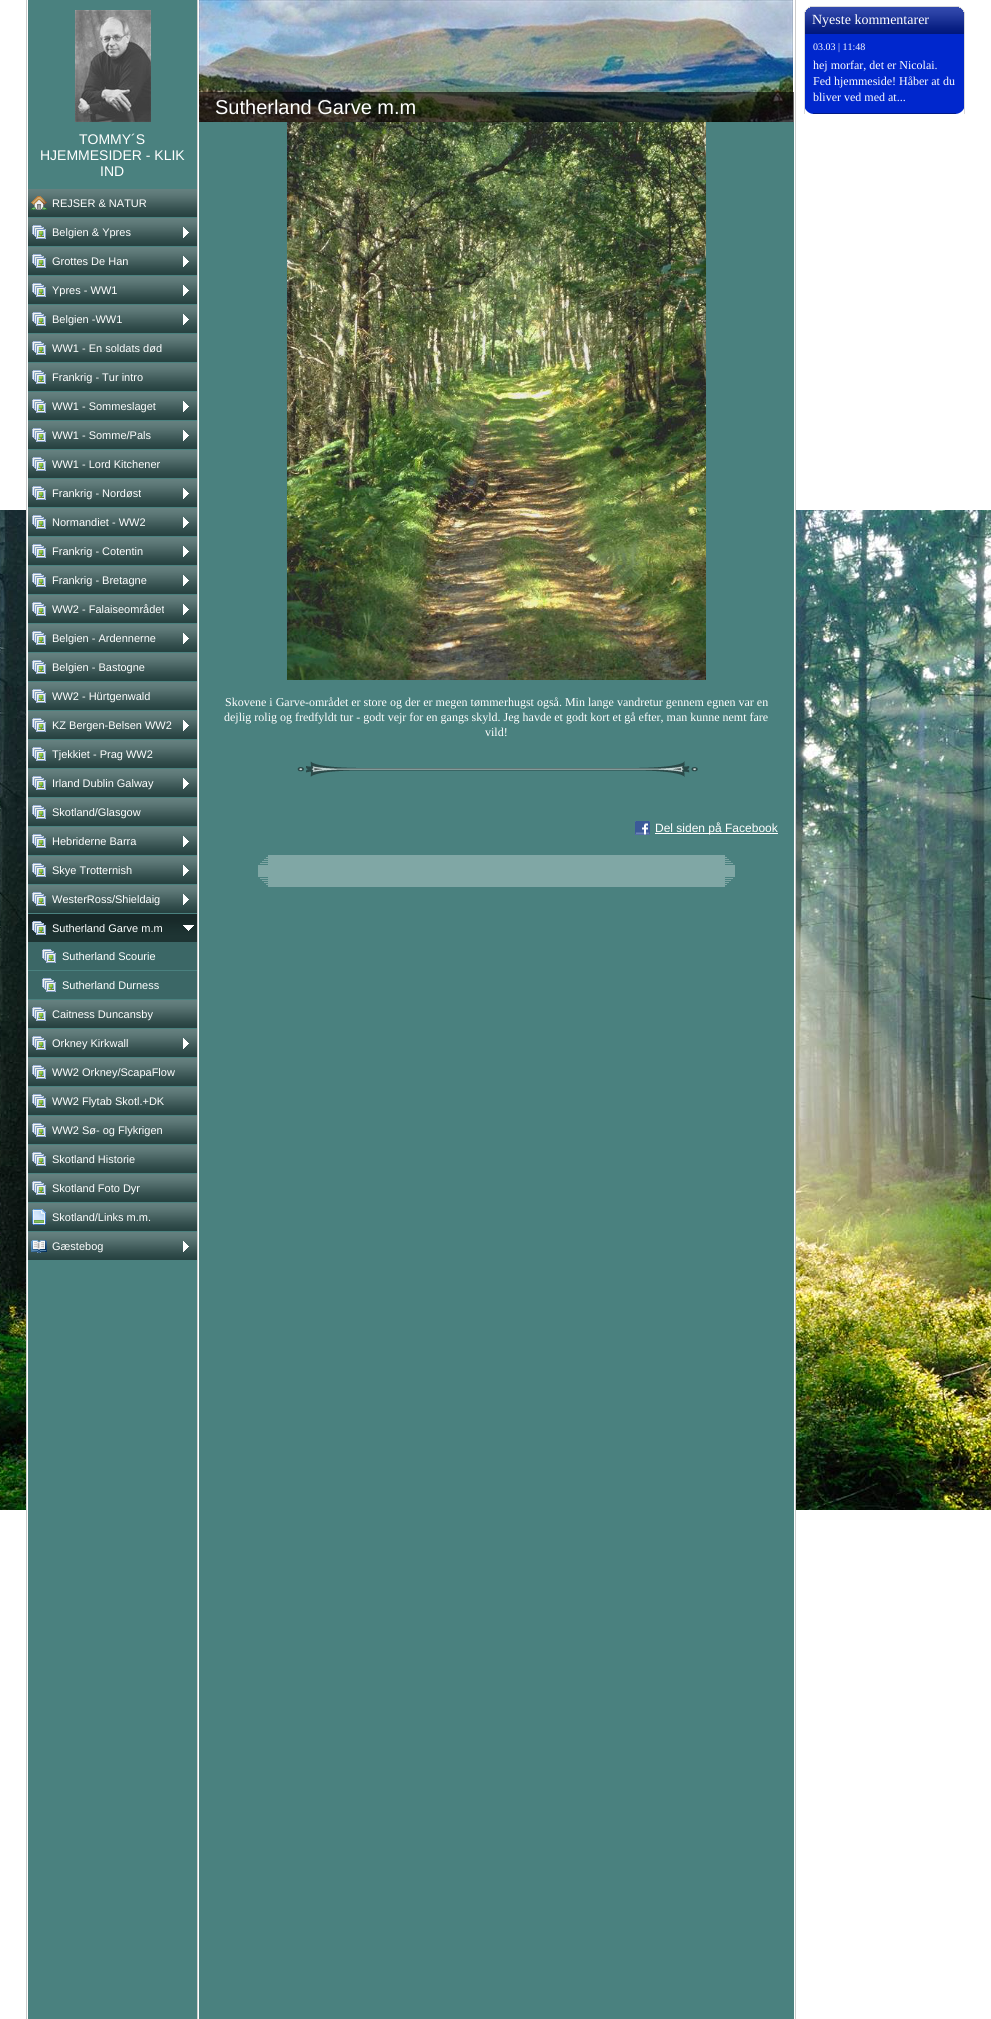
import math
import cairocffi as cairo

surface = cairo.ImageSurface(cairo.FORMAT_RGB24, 991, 2019)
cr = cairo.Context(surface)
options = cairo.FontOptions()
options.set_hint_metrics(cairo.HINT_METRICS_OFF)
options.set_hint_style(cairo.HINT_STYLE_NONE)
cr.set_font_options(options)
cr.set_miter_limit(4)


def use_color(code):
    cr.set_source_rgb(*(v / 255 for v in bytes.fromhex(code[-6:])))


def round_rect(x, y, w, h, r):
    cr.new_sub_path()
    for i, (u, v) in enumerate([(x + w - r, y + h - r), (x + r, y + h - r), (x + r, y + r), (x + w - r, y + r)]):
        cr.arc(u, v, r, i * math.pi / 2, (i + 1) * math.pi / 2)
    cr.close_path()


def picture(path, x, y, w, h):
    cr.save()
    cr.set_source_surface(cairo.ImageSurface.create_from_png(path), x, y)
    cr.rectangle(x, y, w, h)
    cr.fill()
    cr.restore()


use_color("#ffffff")
cr.paint()
use_color("#0027cd")
round_rect(804, 6, 161, 108, 10)
cr.fill()
picture("img1.png", 804, 6, 161, 28)
cr.select_font_face("Liberation Serif")
cr.set_font_size(14)
use_color("#ffffff")
cr.move_to(812, 24)
cr.show_text("Nyeste kommentarer")
use_color("#dadada")
cr.rectangle(964, 34, 1, 80)
cr.fill()
cr.rectangle(804, 34, 1, 80)
cr.fill()
cr.set_font_size(10)
use_color("#ffffff")
cr.move_to(813, 50)
cr.show_text("03.03 | 11:48")
cr.set_font_size(12)
cr.move_to(813, 69)
cr.show_text("hej morfar, det er Nicolai.")
cr.move_to(813, 85)
cr.show_text("Fed hjemmeside! Håber at du")
cr.move_to(813, 101)
cr.show_text("bliver ved med at...")
picture("img2.png", 813, 113, 143, 1)
picture("img18.png", 0, 510, 991, 1000)
cr.rectangle(27, 510, 768, 1000)
cr.fill()
use_color("#cccccc")
cr.rectangle(26, 0, 1, 2019)
cr.fill()
use_color("#4a817f")
cr.rectangle(28, 0, 169, 2019)
cr.fill()
picture("img3.png", 75, 10, 76, 112)
cr.select_font_face("Liberation Sans")
cr.set_font_size(14)
use_color("#ffffff")
cr.move_to(79, 144)
cr.show_text("TOMMY´S")
cr.move_to(40, 160)
cr.show_text("HJEMMESIDER - KLIK")
cr.move_to(100, 176)
cr.show_text("IND")
picture("img4.png", 28, 189, 169, 28)
picture("img5.png", 31, 196, 16, 14)
cr.set_font_size(11)
cr.move_to(52, 207)
cr.show_text("REJSER & NATUR")
picture("img4.png", 28, 218, 169, 28)
picture("img6.png", 32, 225, 14, 14)
picture("img7.png", 183, 227, 6, 11)
cr.move_to(52, 236)
cr.show_text("Belgien & Ypres")
picture("img4.png", 28, 247, 169, 28)
picture("img6.png", 32, 254, 14, 14)
picture("img7.png", 183, 256, 6, 11)
cr.move_to(52, 265)
cr.show_text("Grottes De Han")
picture("img4.png", 28, 276, 169, 28)
picture("img6.png", 32, 283, 14, 14)
picture("img7.png", 183, 285, 6, 11)
cr.move_to(52, 294)
cr.show_text("Ypres - WW1")
picture("img4.png", 28, 305, 169, 28)
picture("img6.png", 32, 312, 14, 14)
picture("img7.png", 183, 314, 6, 11)
cr.move_to(52, 323)
cr.show_text("Belgien -WW1")
picture("img4.png", 28, 334, 169, 28)
picture("img6.png", 32, 341, 14, 14)
cr.move_to(52, 352)
cr.show_text("WW1 - En soldats død")
picture("img4.png", 28, 363, 169, 28)
picture("img6.png", 32, 370, 14, 14)
cr.move_to(52, 381)
cr.show_text("Frankrig - Tur intro")
picture("img4.png", 28, 392, 169, 28)
picture("img6.png", 32, 399, 14, 14)
picture("img7.png", 183, 401, 6, 11)
cr.move_to(52, 410)
cr.show_text("WW1 - Sommeslaget")
picture("img4.png", 28, 421, 169, 28)
picture("img6.png", 32, 428, 14, 14)
picture("img7.png", 183, 430, 6, 11)
cr.move_to(52, 439)
cr.show_text("WW1 - Somme/Pals")
picture("img4.png", 28, 450, 169, 28)
picture("img6.png", 32, 457, 14, 14)
cr.move_to(52, 468)
cr.show_text("WW1 - Lord Kitchener")
picture("img4.png", 28, 479, 169, 28)
picture("img6.png", 32, 486, 14, 14)
picture("img7.png", 183, 488, 6, 11)
cr.move_to(52, 497)
cr.show_text("Frankrig - Nordøst")
picture("img4.png", 28, 508, 169, 28)
picture("img6.png", 32, 515, 14, 14)
picture("img7.png", 183, 517, 6, 11)
cr.move_to(52, 526)
cr.show_text("Normandiet - WW2")
picture("img4.png", 28, 537, 169, 28)
picture("img6.png", 32, 544, 14, 14)
picture("img7.png", 183, 546, 6, 11)
cr.move_to(52, 555)
cr.show_text("Frankrig - Cotentin")
picture("img4.png", 28, 566, 169, 28)
picture("img6.png", 32, 573, 14, 14)
picture("img7.png", 183, 575, 6, 11)
cr.move_to(52, 584)
cr.show_text("Frankrig - Bretagne")
picture("img4.png", 28, 595, 169, 28)
picture("img6.png", 32, 602, 14, 14)
picture("img7.png", 183, 604, 6, 11)
cr.move_to(52, 613)
cr.show_text("WW2 - Falaiseområdet")
picture("img4.png", 28, 624, 169, 28)
picture("img6.png", 32, 631, 14, 14)
picture("img7.png", 183, 633, 6, 11)
cr.move_to(52, 642)
cr.show_text("Belgien - Ardennerne")
picture("img4.png", 28, 653, 169, 28)
picture("img6.png", 32, 660, 14, 14)
cr.move_to(52, 671)
cr.show_text("Belgien - Bastogne")
picture("img4.png", 28, 682, 169, 28)
picture("img6.png", 32, 689, 14, 14)
cr.move_to(52, 700)
cr.show_text("WW2 - Hürtgenwald")
picture("img4.png", 28, 711, 169, 28)
picture("img6.png", 32, 718, 14, 14)
picture("img7.png", 183, 720, 6, 11)
cr.move_to(52, 729)
cr.show_text("KZ Bergen-Belsen WW2")
picture("img4.png", 28, 740, 169, 28)
picture("img6.png", 32, 747, 14, 14)
cr.move_to(52, 758)
cr.show_text("Tjekkiet - Prag WW2")
picture("img4.png", 28, 769, 169, 28)
picture("img6.png", 32, 776, 14, 14)
picture("img7.png", 183, 778, 6, 11)
cr.move_to(52, 787)
cr.show_text("Irland Dublin Galway")
picture("img4.png", 28, 798, 169, 28)
picture("img6.png", 32, 805, 14, 14)
cr.move_to(52, 816)
cr.show_text("Skotland/Glasgow")
picture("img4.png", 28, 827, 169, 28)
picture("img6.png", 32, 834, 14, 14)
picture("img7.png", 183, 836, 6, 11)
cr.move_to(52, 845)
cr.show_text("Hebriderne Barra")
picture("img4.png", 28, 856, 169, 28)
picture("img6.png", 32, 863, 14, 14)
picture("img7.png", 183, 865, 6, 11)
cr.move_to(52, 874)
cr.show_text("Skye Trotternish")
picture("img4.png", 28, 885, 169, 28)
picture("img6.png", 32, 892, 14, 14)
picture("img7.png", 183, 894, 6, 11)
cr.move_to(52, 903)
cr.show_text("WesterRoss/Shieldaig")
picture("img8.png", 28, 914, 169, 28)
picture("img9.png", 32, 921, 14, 14)
picture("img10.png", 183, 925, 11, 6)
cr.move_to(52, 932)
cr.show_text("Sutherland Garve m.m")
use_color("#3b6766")
cr.rectangle(28, 942, 169, 28)
cr.fill()
picture("img11.png", 42, 949, 14, 14)
use_color("#ffffff")
cr.move_to(62, 960)
cr.show_text("Sutherland Scourie")
use_color("#3b6766")
cr.rectangle(28, 971, 169, 28)
cr.fill()
picture("img11.png", 42, 978, 14, 14)
use_color("#ffffff")
cr.move_to(62, 989)
cr.show_text("Sutherland Durness")
picture("img4.png", 28, 1000, 169, 28)
picture("img6.png", 32, 1007, 14, 14)
cr.move_to(52, 1018)
cr.show_text("Caitness Duncansby")
picture("img4.png", 28, 1029, 169, 28)
picture("img6.png", 32, 1036, 14, 14)
picture("img7.png", 183, 1038, 6, 11)
cr.move_to(52, 1047)
cr.show_text("Orkney Kirkwall")
picture("img4.png", 28, 1058, 169, 28)
picture("img6.png", 32, 1065, 14, 14)
cr.move_to(52, 1076)
cr.show_text("WW2 Orkney/ScapaFlow")
picture("img4.png", 28, 1087, 169, 28)
picture("img6.png", 32, 1094, 14, 14)
cr.move_to(52, 1105)
cr.show_text("WW2 Flytab Skotl.+DK")
picture("img4.png", 28, 1116, 169, 28)
picture("img6.png", 32, 1123, 14, 14)
cr.move_to(52, 1134)
cr.show_text("WW2 Sø- og Flykrigen")
picture("img4.png", 28, 1145, 169, 28)
picture("img6.png", 32, 1152, 14, 14)
cr.move_to(52, 1163)
cr.show_text("Skotland Historie")
picture("img4.png", 28, 1174, 169, 28)
picture("img6.png", 32, 1181, 14, 14)
cr.move_to(52, 1192)
cr.show_text("Skotland Foto Dyr")
picture("img4.png", 28, 1203, 169, 28)
picture("img12.png", 32, 1209, 14, 16)
cr.move_to(52, 1221)
cr.show_text("Skotland/Links m.m.")
picture("img4.png", 28, 1232, 169, 28)
picture("img13.png", 31, 1240, 16, 13)
picture("img7.png", 183, 1241, 6, 11)
cr.move_to(52, 1250)
cr.show_text("Gæstebog")
use_color("#cccccc")
cr.rectangle(197, 0, 1, 2019)
cr.fill()
use_color("#4a817f")
cr.rectangle(199, 122, 595, 1897)
cr.fill()
picture("img14.png", 199, 0, 594, 122)
cr.set_source_rgba(0, 0, 0, 0.6)
cr.rectangle(199, 92, 595, 30)
cr.fill()
cr.set_font_size(20)
use_color("#ffffff")
cr.move_to(215, 114)
cr.show_text("Sutherland Garve m.m")
picture("img15.png", 287, 122, 419, 558)
cr.select_font_face("Liberation Serif")
cr.set_font_size(12)
cr.move_to(225, 706)
cr.show_text("Skovene i Garve-området er store og der er megen tømmerhugst også. Min lange vandretur gennem egnen var en")
cr.move_to(224, 721)
cr.show_text("dejlig rolig og fredfyldt tur - godt vejr for en gangs skyld. Jeg havde et godt kort et gå efter, man kunne nemt fare")
cr.move_to(485, 736)
cr.show_text("vild!")
picture("img16.png", 297, 761, 401, 16)
picture("img17.png", 635, 821, 15, 14)
cr.rectangle(655, 833, 123, 1)
cr.fill()
cr.select_font_face("Liberation Sans")
cr.move_to(655, 832)
cr.show_text("Del siden på Facebook")
use_color("#80a7a5")
cr.rectangle(258, 855, 477, 32)
cr.fill()
use_color("#4a817f")
cr.rectangle(725, 855, 10, 2)
cr.fill()
cr.rectangle(258, 855, 10, 2)
cr.fill()
cr.rectangle(727, 857, 8, 1)
cr.fill()
cr.rectangle(258, 857, 8, 1)
cr.fill()
cr.rectangle(725, 858, 10, 1)
cr.fill()
cr.rectangle(258, 858, 10, 1)
cr.fill()
cr.rectangle(729, 859, 6, 1)
cr.fill()
cr.rectangle(258, 859, 6, 1)
cr.fill()
cr.rectangle(725, 860, 10, 1)
cr.fill()
cr.rectangle(258, 860, 10, 1)
cr.fill()
cr.rectangle(731, 861, 4, 1)
cr.fill()
cr.rectangle(258, 861, 4, 1)
cr.fill()
cr.rectangle(725, 862, 10, 1)
cr.fill()
cr.rectangle(258, 862, 10, 1)
cr.fill()
cr.rectangle(733, 863, 2, 1)
cr.fill()
cr.rectangle(258, 863, 2, 1)
cr.fill()
cr.rectangle(725, 864, 10, 1)
cr.fill()
cr.rectangle(258, 864, 10, 1)
cr.fill()
cr.rectangle(725, 877, 10, 1)
cr.fill()
cr.rectangle(258, 877, 10, 1)
cr.fill()
cr.rectangle(733, 878, 2, 1)
cr.fill()
cr.rectangle(258, 878, 2, 1)
cr.fill()
cr.rectangle(725, 879, 10, 1)
cr.fill()
cr.rectangle(258, 879, 10, 1)
cr.fill()
cr.rectangle(731, 880, 4, 1)
cr.fill()
cr.rectangle(258, 880, 4, 1)
cr.fill()
cr.rectangle(725, 881, 10, 1)
cr.fill()
cr.rectangle(258, 881, 10, 1)
cr.fill()
cr.rectangle(729, 882, 6, 1)
cr.fill()
cr.rectangle(258, 882, 6, 1)
cr.fill()
cr.rectangle(725, 883, 10, 1)
cr.fill()
cr.rectangle(258, 883, 10, 1)
cr.fill()
cr.rectangle(727, 884, 8, 1)
cr.fill()
cr.rectangle(258, 884, 8, 1)
cr.fill()
cr.rectangle(725, 885, 10, 2)
cr.fill()
cr.rectangle(258, 885, 10, 2)
cr.fill()
use_color("#cccccc")
cr.rectangle(795, 0, 1, 2019)
cr.fill()
surface.write_to_png("result.png")
